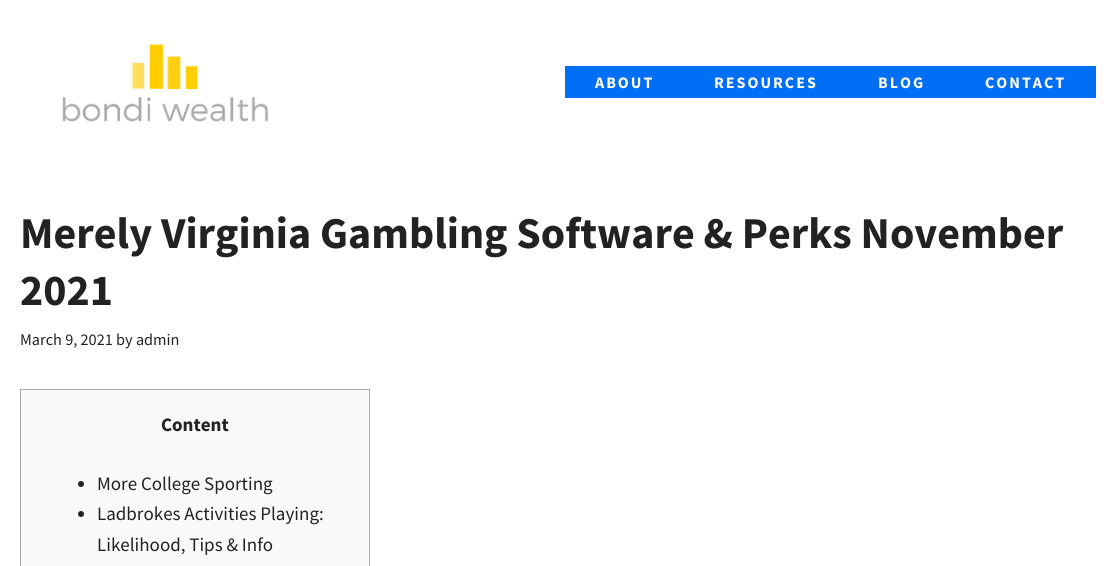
import math
import cairocffi as cairo

surface = cairo.ImageSurface(cairo.FORMAT_RGB24, 1116, 566)
cr = cairo.Context(surface)
options = cairo.FontOptions()
options.set_hint_metrics(cairo.HINT_METRICS_OFF)
options.set_hint_style(cairo.HINT_STYLE_NONE)
cr.set_font_options(options)
cr.set_miter_limit(4)


def use_color(code):
    cr.set_source_rgb(*(v / 255 for v in bytes.fromhex(code[-6:])))


def spaced_text(x, y, s, letter, word):
    cr.move_to(x, y)
    for ch in s:
        cr.show_text(ch)
        cr.rel_move_to(letter + word * (ch == ' '), 0)


def picture(path, x, y, w, h):
    cr.save()
    cr.set_source_surface(cairo.ImageSurface.create_from_png(path), x, y)
    cr.rectangle(x, y, w, h)
    cr.fill()
    cr.restore()


use_color("#ffffff")
cr.paint()
picture("img1.png", 62, 44, 207, 78)
use_color("#006ff5")
cr.rectangle(565, 66, 531, 32)
cr.fill()
cr.select_font_face("Source Sans Pro", cairo.FONT_SLANT_NORMAL, cairo.FONT_WEIGHT_BOLD)
cr.set_font_size(16)
use_color("#ffffff")
spaced_text(595, 88, "ABOUT", 2, 0)
spaced_text(714, 88, "RESOURCES", 2, 0)
spaced_text(878, 88, "BLOG", 2, 0)
spaced_text(985, 88, "CONTACT", 2, 0)
cr.set_font_size(44)
use_color("#222222")
cr.move_to(20, 248)
cr.show_text("Merely Virginia Gambling Software & Perks November")
cr.move_to(20, 305)
cr.show_text("2021")
cr.select_font_face("Source Sans Pro")
cr.set_font_size(16.25)
cr.move_to(20, 345)
cr.show_text("March 9, 2021 by admin")
use_color("#f9f9f9")
cr.rectangle(20.5, 389.5, 349, 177)
cr.fill_preserve()
use_color("#aaaaaa")
cr.set_line_width(1)
cr.stroke()
cr.select_font_face("Source Sans Pro", cairo.FONT_SLANT_NORMAL, cairo.FONT_WEIGHT_BOLD)
cr.set_font_size(19)
use_color("#222222")
cr.move_to(161, 431)
cr.show_text("Content")
cr.new_path()
cr.arc(81, 484, 3, 0, 2 * math.pi)
cr.fill()
cr.select_font_face("Source Sans Pro")
cr.move_to(97, 490)
cr.show_text("More College Sporting")
cr.new_path()
cr.arc(81, 514, 3, 0, 2 * math.pi)
cr.fill()
cr.move_to(97, 520)
cr.show_text("Ladbrokes Activities Playing:")
cr.move_to(97, 551)
cr.show_text("Likelihood, Tips & Info")
surface.write_to_png("result.png")
